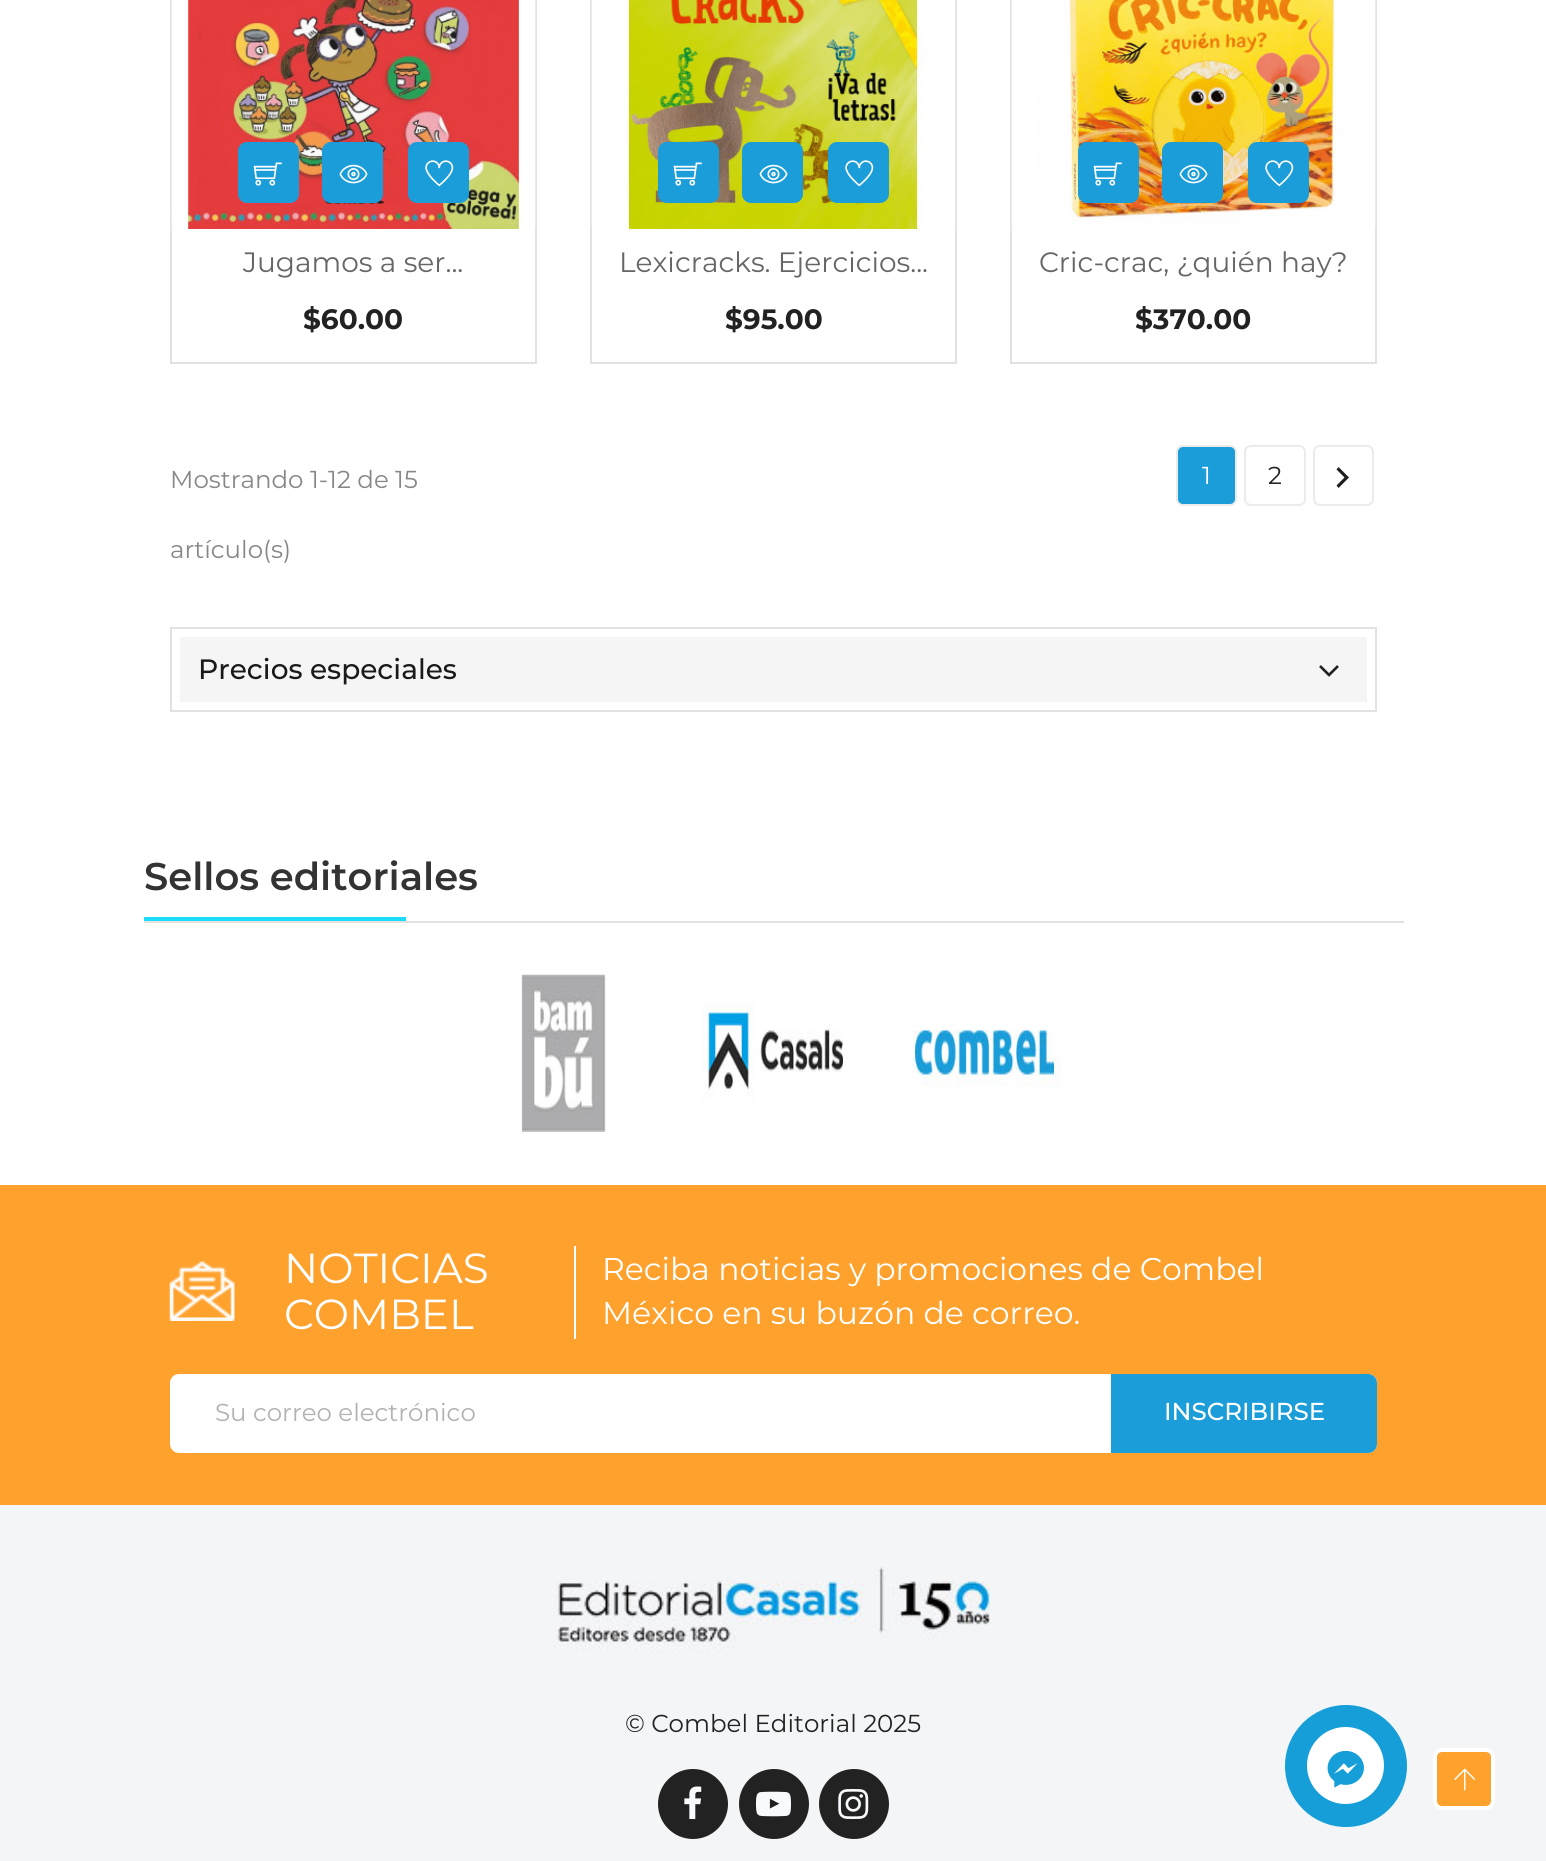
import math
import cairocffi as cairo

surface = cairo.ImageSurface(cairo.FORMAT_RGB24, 1546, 1861)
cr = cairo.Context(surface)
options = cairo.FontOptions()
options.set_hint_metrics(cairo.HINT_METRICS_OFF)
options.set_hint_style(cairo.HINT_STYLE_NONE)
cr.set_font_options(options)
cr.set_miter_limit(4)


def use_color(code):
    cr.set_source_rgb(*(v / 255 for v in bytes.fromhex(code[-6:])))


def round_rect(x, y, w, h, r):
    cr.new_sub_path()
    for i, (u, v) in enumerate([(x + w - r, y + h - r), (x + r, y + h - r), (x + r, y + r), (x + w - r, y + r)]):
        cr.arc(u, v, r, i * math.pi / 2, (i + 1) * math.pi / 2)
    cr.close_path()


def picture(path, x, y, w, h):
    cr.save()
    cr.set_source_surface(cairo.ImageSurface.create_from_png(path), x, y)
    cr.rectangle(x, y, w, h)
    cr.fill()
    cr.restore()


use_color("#ffffff")
cr.paint()
cr.rectangle(171, -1, 365, 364)
use_color("#e2e2e2")
cr.stroke()
picture("img1.png", 171, 0, 365, 229)
use_color("#1b9dd9")
round_rect(238, 142, 61, 61, 9)
cr.fill()
picture("img2.png", 253, 162, 29, 24)
round_rect(322, 142, 61, 61, 9)
cr.fill()
picture("img3.png", 339, 164, 29, 20)
round_rect(408, 142, 61, 61, 9)
cr.fill()
picture("img4.png", 425, 160, 29, 27)
cr.select_font_face("Montserrat")
cr.set_font_size(28)
use_color("#666666")
cr.move_to(243, 272)
cr.show_text("Jugamos a ser...")
cr.select_font_face("Montserrat", cairo.FONT_SLANT_NORMAL, cairo.FONT_WEIGHT_BOLD)
use_color("#222222")
cr.move_to(303, 329)
cr.show_text("$60.00")
cr.rectangle(591, -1, 365, 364)
use_color("#e2e2e2")
cr.stroke()
picture("img5.png", 591, 0, 365, 229)
use_color("#1b9dd9")
round_rect(658, 142, 61, 61, 9)
cr.fill()
picture("img2.png", 673, 162, 29, 24)
round_rect(742, 142, 61, 61, 9)
cr.fill()
picture("img3.png", 759, 164, 29, 20)
round_rect(828, 142, 61, 61, 9)
cr.fill()
picture("img4.png", 845, 160, 29, 27)
cr.select_font_face("Montserrat")
use_color("#666666")
cr.move_to(619, 272)
cr.show_text("Lexicracks. Ejercicios...")
cr.select_font_face("Montserrat", cairo.FONT_SLANT_NORMAL, cairo.FONT_WEIGHT_BOLD)
use_color("#222222")
cr.move_to(725, 329)
cr.show_text("$95.00")
cr.rectangle(1011, -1, 365, 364)
use_color("#e2e2e2")
cr.stroke()
picture("img6.png", 1011, 0, 365, 229)
use_color("#1b9dd9")
round_rect(1078, 142, 61, 61, 9)
cr.fill()
picture("img2.png", 1093, 162, 29, 24)
round_rect(1162, 142, 61, 61, 9)
cr.fill()
picture("img3.png", 1179, 164, 29, 20)
round_rect(1248, 142, 61, 61, 9)
cr.fill()
picture("img4.png", 1265, 160, 29, 27)
cr.select_font_face("Montserrat")
use_color("#666666")
cr.move_to(1039, 272)
cr.show_text("Cric-crac, ¿quién hay?")
cr.select_font_face("Montserrat", cairo.FONT_SLANT_NORMAL, cairo.FONT_WEIGHT_BOLD)
use_color("#222222")
cr.move_to(1135, 329)
cr.show_text("$370.00")
cr.select_font_face("Montserrat")
cr.set_font_size(24.5)
use_color("#878787")
cr.move_to(170, 488)
cr.show_text("Mostrando 1-12 de 15")
cr.move_to(170, 558)
cr.show_text("artículo(s)")
use_color("#1b9dd9")
round_rect(1177, 446, 59, 59, 6)
cr.fill_preserve()
use_color("#ebebeb")
cr.stroke()
use_color("#ffffff")
cr.move_to(1202, 484)
cr.show_text("1")
round_rect(1245, 446, 60, 59, 6)
use_color("#ebebeb")
cr.stroke()
use_color("#222222")
cr.move_to(1268, 484)
cr.show_text("2")
round_rect(1314, 446, 59, 59, 6)
use_color("#ebebeb")
cr.stroke()
use_color("#1e1e1e")
cr.new_path()
cr.move_to(1336.5, 485.5)
cr.line_to(1344.5, 477.5)
cr.line_to(1336.5, 469.5)
cr.line_to(1338.5, 467)
cr.line_to(1349, 477.5)
cr.line_to(1338.5, 488)
cr.close_path()
cr.fill()
cr.rectangle(171, 628, 1205, 83)
use_color("#e2e2e2")
cr.stroke()
use_color("#f5f5f5")
cr.rectangle(180, 637, 1187, 65)
cr.fill()
cr.select_font_face("Montserrat Medium")
cr.set_font_size(28)
use_color("#1a1a1a")
cr.move_to(198, 679)
cr.show_text("Precios especiales")
picture("img7.png", 1319, 665, 20, 12)
use_color("#e2e2e2")
cr.rectangle(144, 921, 1260, 2)
cr.fill()
cr.select_font_face("Montserrat SemiBold")
cr.set_font_size(38.5)
use_color("#333333")
cr.move_to(144, 890)
cr.show_text("Sellos editoriales")
use_color("#1bdcfb")
cr.rectangle(144, 917, 262, 4)
cr.fill()
picture("img8.png", 521, 974, 85, 158)
picture("img9.png", 702, 1003, 141, 98)
picture("img10.png", 912, 1030, 149, 57)
use_color("#ffa12d")
cr.rectangle(0, 1185, 1546, 320)
cr.fill()
picture("img11.png", 169, 1261, 66, 60)
use_color("#ffffff")
cr.rectangle(574, 1246, 2, 93)
cr.fill()
cr.select_font_face("Montserrat")
cr.set_font_size(42)
cr.move_to(284, 1283)
cr.show_text("NOTICIAS")
cr.move_to(284, 1329)
cr.show_text("COMBEL")
cr.set_font_size(31.5)
cr.move_to(602, 1280)
cr.show_text("Reciba noticias y promociones de Combel")
cr.move_to(602, 1324)
cr.show_text("México en su buzón de correo.")
round_rect(170, 1374, 1207, 79, 9)
cr.fill()
cr.set_font_size(24.5)
use_color("#b2b2b2")
cr.move_to(215, 1421)
cr.show_text("Su correo electrónico")
use_color("#1b9dd9")
cr.new_path()
cr.move_to(1111, 1374)
cr.line_to(1368, 1374)
cr.curve_to(1373, 1374, 1377, 1378, 1377, 1383)
cr.line_to(1377, 1444)
cr.curve_to(1377, 1449, 1373, 1453, 1368, 1453)
cr.line_to(1111, 1453)
cr.close_path()
cr.fill()
cr.select_font_face("Montserrat Medium")
use_color("#ffffff")
cr.move_to(1164, 1420)
cr.show_text("INSCRIBIRSE")
use_color("#f4f5f7")
cr.rectangle(0, 1505, 1546, 356)
cr.fill()
picture("img12.png", 555, 1567, 435, 85)
cr.select_font_face("Montserrat")
use_color("#222222")
cr.move_to(625, 1732)
cr.show_text("© Combel Editorial 2025")
use_color("#169ed9")
cr.new_path()
cr.arc(1346, 1766, 61, 0, 2 * math.pi)
cr.fill()
use_color("#ffffff")
cr.arc(1345.5, 1765.5, 38.5, 0, 2 * math.pi)
cr.fill()
picture("img13.png", 1327, 1750, 37, 38)
use_color("#222222")
cr.arc(693, 1804, 35, 0, 2 * math.pi)
cr.fill()
picture("img14.png", 684, 1786, 18, 33)
cr.arc(774, 1804, 35, 0, 2 * math.pi)
cr.fill()
picture("img15.png", 756, 1791, 35, 26)
cr.arc(854, 1804, 35, 0, 2 * math.pi)
cr.fill()
picture("img16.png", 838, 1789, 31, 30)
use_color("#ffa12d")
round_rect(1435, 1750, 58, 58, 7)
cr.fill_preserve()
use_color("#ffffff")
cr.set_line_width(4)
cr.stroke()
picture("img17.png", 1454, 1768, 22, 23)
surface.write_to_png("result.png")
